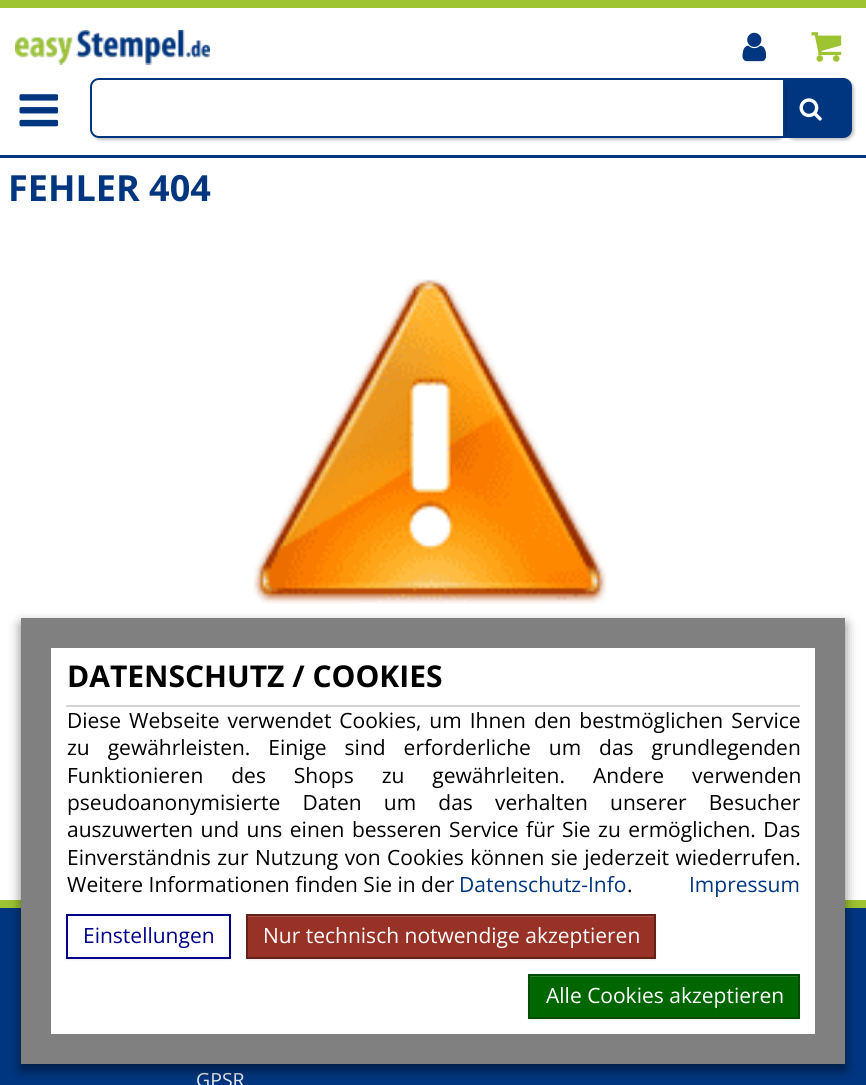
import math
import cairocffi as cairo

surface = cairo.ImageSurface(cairo.FORMAT_RGB24, 866, 1085)
cr = cairo.Context(surface)
options = cairo.FontOptions()
options.set_hint_metrics(cairo.HINT_METRICS_OFF)
options.set_hint_style(cairo.HINT_STYLE_NONE)
cr.set_font_options(options)
cr.set_miter_limit(4)


def use_color(code):
    cr.set_source_rgb(*(v / 255 for v in bytes.fromhex(code[-6:])))


def spaced_text(x, y, s, letter, word):
    cr.move_to(x, y)
    for ch in s:
        cr.show_text(ch)
        cr.rel_move_to(letter + word * (ch == ' '), 0)


def round_rect(x, y, w, h, r):
    cr.new_sub_path()
    for i, (u, v) in enumerate([(x + w - r, y + h - r), (x + r, y + h - r), (x + r, y + r), (x + w - r, y + r)]):
        cr.arc(u, v, r, i * math.pi / 2, (i + 1) * math.pi / 2)
    cr.close_path()


def shadow(x, y, w, h, r, blur, alpha):
    cr.push_group_with_content(cairo.CONTENT_ALPHA)
    cr.set_operator(cairo.OPERATOR_SOURCE)
    for i in range(15, -16, -2):
        e = blur * i / 6
        if min(w, h) + 2 * e > 0:
            cr.set_source_rgba(0, 0, 0, alpha * math.erfc((i - 1) / 8.5) / 2)
            round_rect(x - e, y - e, w + 2 * e, h + 2 * e, max(0, min(r + e + blur * .6, min(w, h) / 2 + e)))
            cr.fill()
    cr.mask(cr.pop_group())


def picture(path, x, y, w, h):
    cr.save()
    cr.set_source_surface(cairo.ImageSurface.create_from_png(path), x, y)
    cr.rectangle(x, y, w, h)
    cr.fill()
    cr.restore()


use_color("#ffffff")
cr.paint()
use_color("#9ec431")
cr.rectangle(0, 0, 866, 8)
cr.fill()
use_color("#003680")
cr.rectangle(0, 155, 866, 3)
cr.fill()
picture("img1.png", 15, 30, 195, 35)
picture("img2.png", 742, 32, 25, 30)
picture("img3.png", 811, 32, 31, 30)
picture("img4.png", 19, 94, 40, 33)
use_color("#000000")
shadow(786, 80, 68, 60, 9, 1.5, 0.25)
use_color("#003680")
cr.new_path()
cr.move_to(786, 79)
cr.line_to(843, 79)
cr.curve_to(847.5, 79, 851, 82.5, 851, 87)
cr.line_to(851, 129)
cr.curve_to(851, 133.5, 847.5, 137, 843, 137)
cr.line_to(786, 137)
cr.close_path()
cr.fill_preserve()
cr.stroke()
cr.save()
cr.set_fill_rule(cairo.FILL_RULE_EVEN_ODD)
cr.new_path()
cr.move_to(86, 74)
cr.line_to(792, 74)
cr.line_to(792, 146)
cr.line_to(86, 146)
cr.close_path()
cr.move_to(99, 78)
cr.line_to(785, 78)
cr.line_to(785, 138)
cr.line_to(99, 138)
cr.curve_to(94, 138, 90, 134, 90, 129)
cr.line_to(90, 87)
cr.curve_to(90, 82, 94, 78, 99, 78)
cr.close_path()
cr.clip()
use_color("#000000")
shadow(92, 80, 694, 60, 9, 1.5, 0.25)
cr.restore()
cr.new_path()
cr.move_to(99, 79)
cr.line_to(784, 79)
cr.line_to(784, 137)
cr.line_to(99, 137)
cr.curve_to(94.5, 137, 91, 133.5, 91, 129)
cr.line_to(91, 87)
cr.curve_to(91, 82.5, 94.5, 79, 99, 79)
cr.close_path()
cr.stroke()
picture("img5.png", 799, 98, 23, 23)
cr.select_font_face("Open Sans", cairo.FONT_SLANT_NORMAL, cairo.FONT_WEIGHT_BOLD)
cr.set_font_size(36)
cr.move_to(8, 201)
cr.show_text("FEHLER 404")
picture("img6.png", 253, 279, 354, 325)
cr.rectangle(0, 908, 866, 177)
cr.fill()
use_color("#9ec431")
cr.rectangle(0, 900, 866, 8)
cr.fill()
cr.select_font_face("Open Sans")
cr.set_font_size(19.5)
use_color("#eeeeee")
cr.move_to(196, 1087)
cr.show_text("GPSR")
use_color("#000000")
shadow(21, 624, 824, 446, 0, 6, 0.5)
use_color("#ffffff")
cr.rectangle(36, 633, 794, 416)
cr.fill_preserve()
use_color("#808080")
cr.set_line_width(30)
cr.stroke()
use_color("#d3d3d3")
cr.rectangle(66, 705, 734, 2)
cr.fill()
cr.select_font_face("Open Sans", cairo.FONT_SLANT_NORMAL, cairo.FONT_WEIGHT_BOLD)
cr.set_font_size(30)
use_color("#000000")
cr.move_to(67, 687)
cr.show_text("DATENSCHUTZ / COOKIES")
cr.select_font_face("Open Sans")
cr.set_font_size(21)
spaced_text(67, 728, "Diese Webseite verwendet Cookies, um Ihnen den bestmöglichen Service", 0, 2.5)
spaced_text(67, 755, "zu gewährleisten. Einige sind erforderliche um das grundlegenden", 0, 12.5)
spaced_text(67, 783, "Funktionieren des Shops zu gewährleiten. Andere verwenden", 0, 22.5)
spaced_text(67, 810, "pseudoanonymisierte Daten um das verhalten unserer Besucher", 0, 16.75)
spaced_text(67, 837, "auszuwerten und uns einen besseren Service für Sie zu ermöglichen. Das", 0, 2)
spaced_text(67, 865, "Einverständnis zur Nutzung von Cookies können sie jederzeit wiederrufen.", 0, 1)
cr.move_to(67, 892)
cr.show_text("Weitere Informationen finden Sie in der")
use_color("#003680")
cr.move_to(459, 892)
cr.show_text("Datenschutz-Info")
use_color("#000000")
cr.move_to(627, 892)
cr.show_text(".")
use_color("#003680")
cr.move_to(689, 892)
cr.show_text("Impressum")
cr.save()
cr.set_fill_rule(cairo.FILL_RULE_EVEN_ODD)
cr.new_path()
cr.move_to(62, 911)
cr.line_to(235, 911)
cr.line_to(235, 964)
cr.line_to(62, 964)
cr.close_path()
cr.move_to(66, 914)
cr.line_to(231, 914)
cr.line_to(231, 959)
cr.line_to(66, 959)
cr.close_path()
cr.clip()
use_color("#000000")
shadow(66, 915, 165, 45, 0, 1, 0.07)
cr.restore()
cr.rectangle(67, 915, 163, 43)
use_color("#00008b")
cr.set_line_width(2)
cr.stroke()
cr.move_to(83, 943)
cr.show_text("Einstellungen")
use_color("#000000")
shadow(246, 915, 410, 45, 0, 1, 0.07)
use_color("#983226")
cr.rectangle(248, 917, 406, 40)
cr.fill()
use_color("#a75147")
cr.rectangle(248, 916, 406, 1)
cr.fill()
cr.rectangle(247, 915, 408, 43)
use_color("#632119")
cr.stroke()
use_color("#ffffff")
cr.move_to(263, 943)
cr.show_text("Nur technisch notwendige akzeptieren")
use_color("#000000")
shadow(528, 975, 272, 45, 0, 1, 0.07)
use_color("#006700")
cr.rectangle(530, 977, 268, 40)
cr.fill()
use_color("#267e26")
cr.rectangle(530, 976, 268, 1)
cr.fill()
cr.rectangle(529, 975, 270, 43)
use_color("#004d00")
cr.stroke()
use_color("#ffffff")
cr.move_to(546, 1003)
cr.show_text("Alle Cookies akzeptieren")
surface.write_to_png("result.png")
